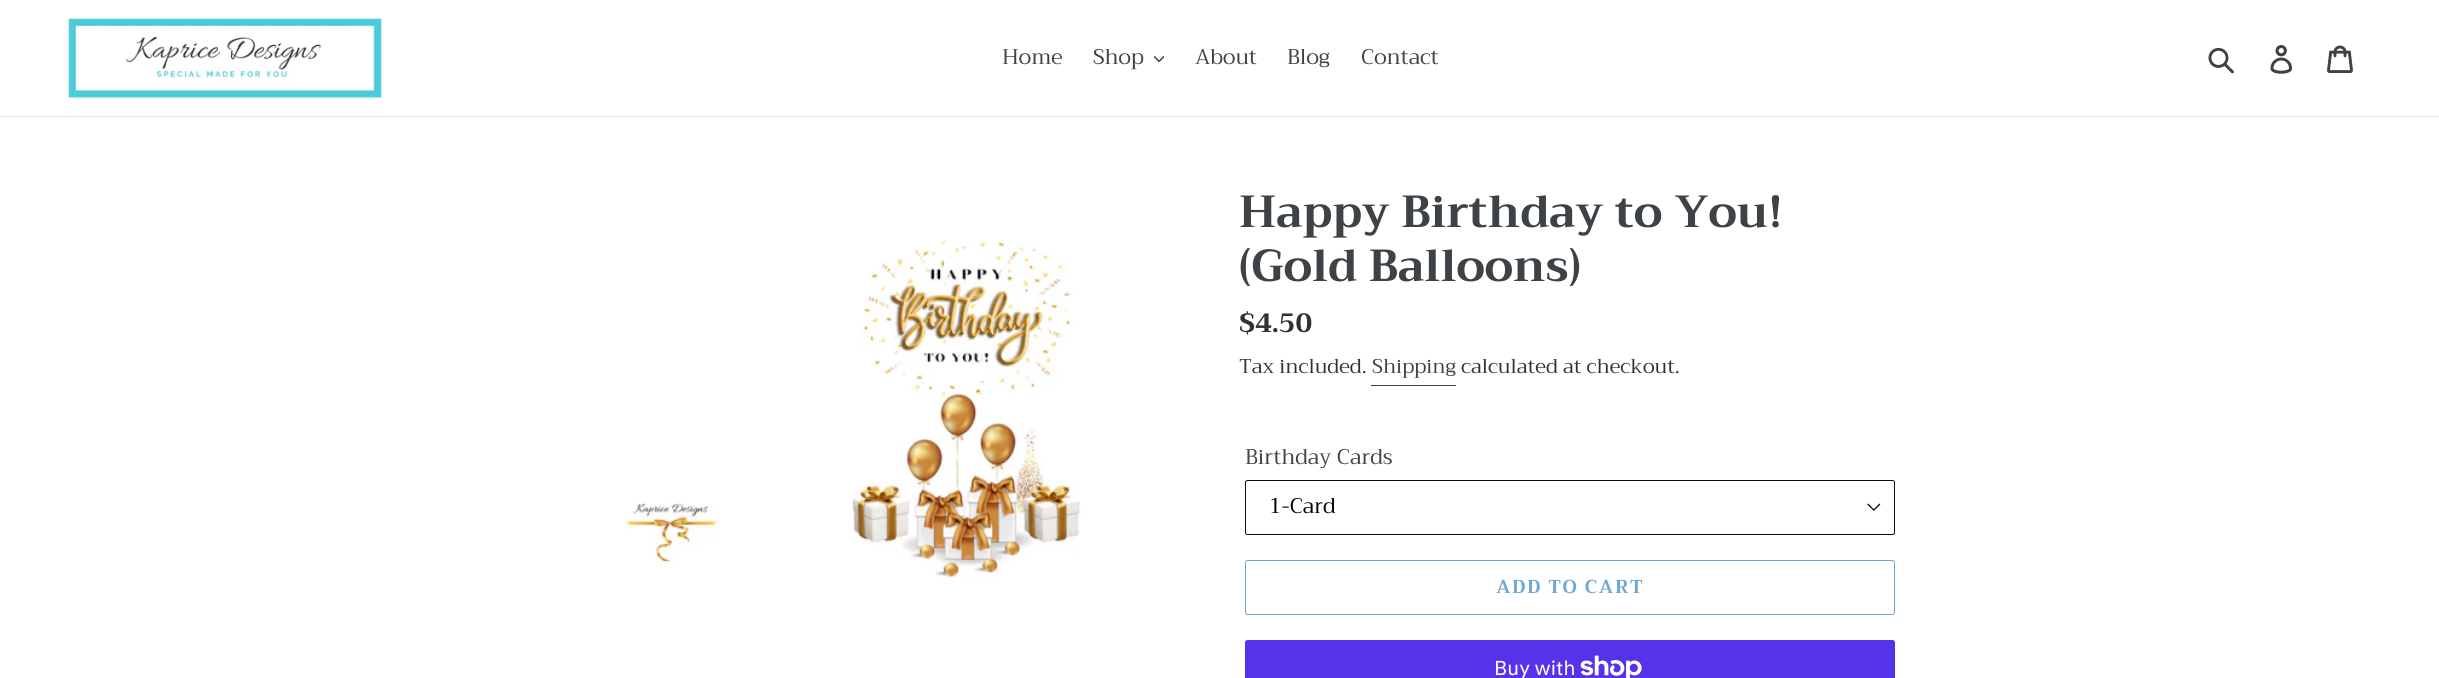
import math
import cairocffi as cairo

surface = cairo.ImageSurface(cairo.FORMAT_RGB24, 2439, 678)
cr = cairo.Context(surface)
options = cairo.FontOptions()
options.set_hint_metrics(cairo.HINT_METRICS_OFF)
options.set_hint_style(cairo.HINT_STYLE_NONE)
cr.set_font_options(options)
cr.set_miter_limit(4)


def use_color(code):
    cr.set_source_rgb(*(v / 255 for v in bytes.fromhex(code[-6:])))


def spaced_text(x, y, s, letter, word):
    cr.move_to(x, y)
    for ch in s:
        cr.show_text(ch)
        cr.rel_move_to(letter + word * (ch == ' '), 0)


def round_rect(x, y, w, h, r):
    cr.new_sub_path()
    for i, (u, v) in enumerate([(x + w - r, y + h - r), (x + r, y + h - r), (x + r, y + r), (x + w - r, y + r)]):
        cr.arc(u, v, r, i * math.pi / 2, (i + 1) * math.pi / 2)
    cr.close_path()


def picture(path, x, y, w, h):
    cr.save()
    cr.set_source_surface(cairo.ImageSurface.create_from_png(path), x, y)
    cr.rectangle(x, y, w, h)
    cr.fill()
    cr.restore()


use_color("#ffffff")
cr.paint()
use_color("#e8e9eb")
cr.rectangle(0, 116, 2439, 1)
cr.fill()
picture("img1.png", 68, 18, 314, 80)
cr.select_font_face("Trirong")
cr.set_font_size(21.25)
use_color("#3d4246")
cr.move_to(1002, 64)
cr.show_text("Home")
cr.move_to(1093, 64)
cr.show_text("Shop")
picture("img2.png", 1154, 56, 10, 6)
cr.move_to(1195, 64)
cr.show_text("About")
cr.move_to(1287, 64)
cr.show_text("Blog")
cr.move_to(1361, 64)
cr.show_text("Contact")
picture("img3.png", 2208, 47, 26, 27)
picture("img4.png", 2270, 45, 23, 29)
picture("img5.png", 2327, 45, 26, 28)
picture("img6.png", 625, 239, 456, 340)
cr.select_font_face("Trirong", cairo.FONT_SLANT_NORMAL, cairo.FONT_WEIGHT_BOLD)
cr.set_font_size(45)
cr.move_to(1239, 227)
cr.show_text("Happy Birthday to You!")
cr.move_to(1239, 281)
cr.show_text("(Gold Balloons)")
cr.set_font_size(26.5)
use_color("#2e3237")
cr.move_to(1239, 332)
cr.show_text("$4.50")
cr.select_font_face("Trirong")
cr.set_font_size(20)
cr.move_to(1239, 373)
cr.show_text("Tax included.")
use_color("#3d4246")
cr.move_to(1372, 373)
cr.show_text("Shipping")
cr.rectangle(1371, 385, 85, 1)
cr.fill()
use_color("#2e3237")
cr.move_to(1461, 373)
cr.show_text("calculated at checkout.")
cr.set_font_size(21.25)
use_color("#3d4246")
cr.move_to(1245, 464)
cr.show_text("Birthday Cards")
picture("img7.png", 1867, 503, 14, 8)
round_rect(1245.5, 480.5, 649, 54, 2)
use_color("#110c0c")
cr.set_line_width(1)
cr.stroke()
use_color("#000000")
cr.move_to(1269, 513)
cr.show_text("1-Card")
round_rect(1245.5, 560.5, 649, 54, 2)
use_color("#6ea8d2")
cr.stroke()
cr.select_font_face("Trirong", cairo.FONT_SLANT_NORMAL, cairo.FONT_WEIGHT_BOLD)
cr.set_font_size(18.75)
spaced_text(1496, 593, "ADD TO CART", 1.5, 0)
use_color("#5433eb")
round_rect(1245, 640, 650, 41, 2.5)
cr.fill()
cr.select_font_face("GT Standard")
cr.set_font_size(20)
use_color("#ffffff")
cr.move_to(1494, 675)
cr.show_text("Buy with")
picture("img8.png", 1580, 655, 62, 23)
surface.write_to_png("result.png")
